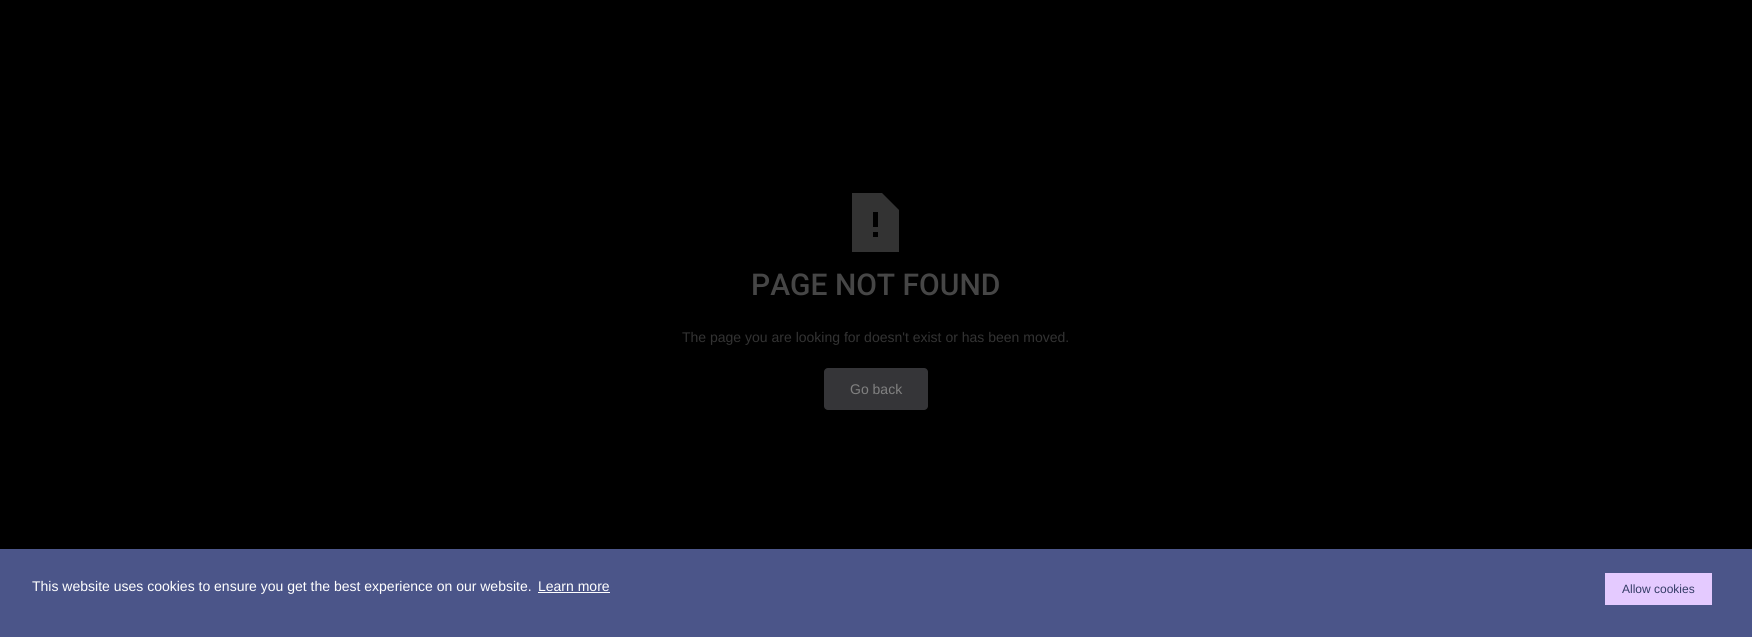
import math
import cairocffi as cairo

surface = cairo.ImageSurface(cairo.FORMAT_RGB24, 1752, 637)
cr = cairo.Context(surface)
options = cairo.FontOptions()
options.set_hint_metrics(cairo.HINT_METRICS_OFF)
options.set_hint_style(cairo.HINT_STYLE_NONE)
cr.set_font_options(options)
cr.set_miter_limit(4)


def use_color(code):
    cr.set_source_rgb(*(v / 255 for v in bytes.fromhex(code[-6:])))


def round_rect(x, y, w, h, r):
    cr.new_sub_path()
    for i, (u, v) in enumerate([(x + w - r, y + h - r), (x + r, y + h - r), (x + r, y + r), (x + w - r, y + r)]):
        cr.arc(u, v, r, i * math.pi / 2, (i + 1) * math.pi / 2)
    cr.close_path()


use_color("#000000")
cr.paint()
use_color("#333333")
cr.set_fill_rule(cairo.FILL_RULE_EVEN_ODD)
cr.new_path()
cr.move_to(852, 193)
cr.line_to(882, 193)
cr.line_to(899, 210)
cr.line_to(899, 252)
cr.line_to(852, 252)
cr.close_path()
cr.move_to(873, 212)
cr.line_to(878, 212)
cr.line_to(878, 227)
cr.line_to(873, 227)
cr.close_path()
cr.move_to(873, 232)
cr.line_to(878, 232)
cr.line_to(878, 237)
cr.line_to(873, 237)
cr.close_path()
cr.fill()
cr.select_font_face("Roboto Medium")
cr.set_font_size(30)
use_color("#464646")
cr.move_to(751, 295)
cr.show_text("PAGE NOT FOUND")
cr.select_font_face("Liberation Sans")
cr.set_font_size(14)
use_color("#333333")
cr.move_to(682, 342)
cr.show_text("The page you are looking for doesn't exist or has been moved.")
use_color("#353538")
round_rect(824, 368, 104, 42, 4)
cr.fill()
use_color("#818181")
cr.move_to(850, 394)
cr.show_text("Go back")
use_color("#4b5589")
cr.rectangle(0, 549, 1752, 88)
cr.fill()
use_color("#ffffff")
cr.move_to(32, 591)
cr.show_text("This website uses cookies to ensure you get the best experience on our website.")
cr.move_to(538, 591)
cr.show_text("Learn more")
cr.rectangle(538, 592, 72, 1)
cr.fill()
use_color("#e4caff")
cr.rectangle(1605, 573, 107, 32)
cr.fill()
cr.set_font_size(12)
use_color("#343c66")
cr.move_to(1622, 593)
cr.show_text("Allow cookies")
surface.write_to_png("result.png")
